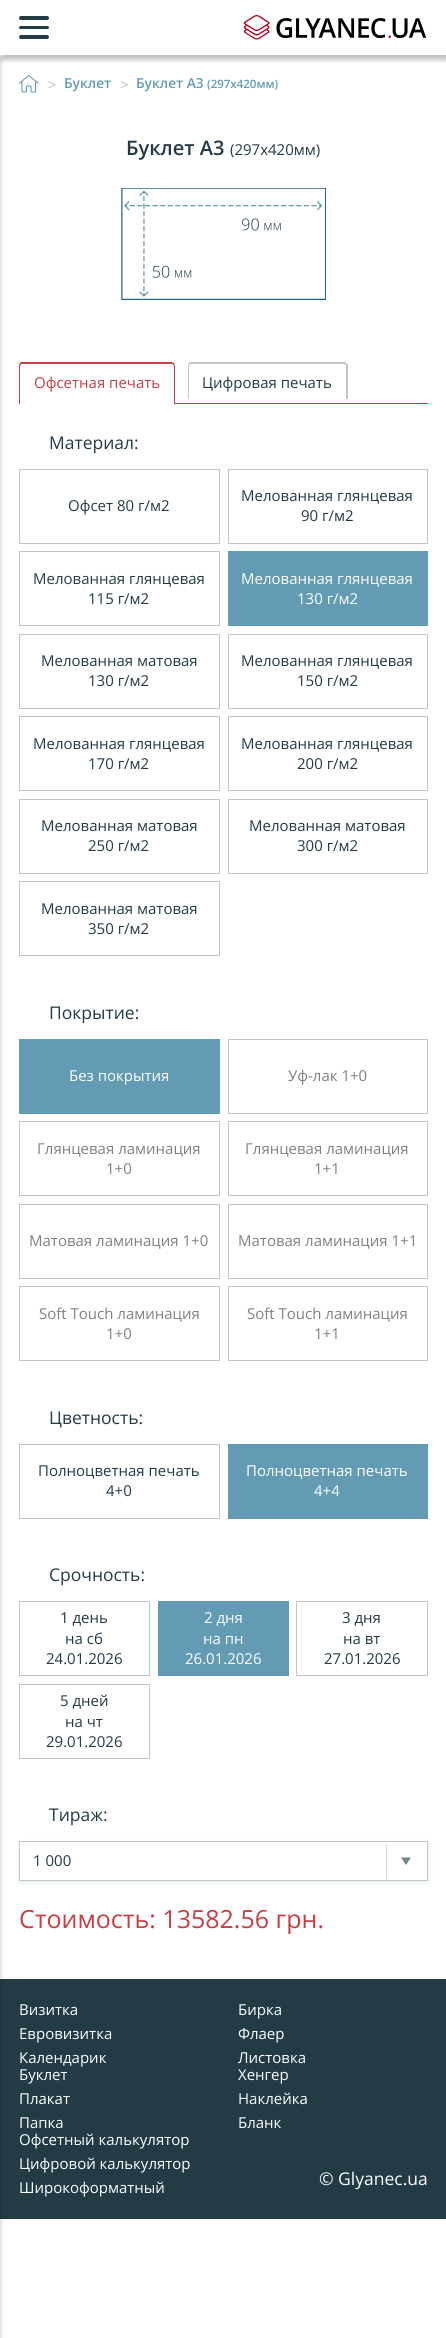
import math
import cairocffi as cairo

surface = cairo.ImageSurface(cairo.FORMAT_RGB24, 446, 2338)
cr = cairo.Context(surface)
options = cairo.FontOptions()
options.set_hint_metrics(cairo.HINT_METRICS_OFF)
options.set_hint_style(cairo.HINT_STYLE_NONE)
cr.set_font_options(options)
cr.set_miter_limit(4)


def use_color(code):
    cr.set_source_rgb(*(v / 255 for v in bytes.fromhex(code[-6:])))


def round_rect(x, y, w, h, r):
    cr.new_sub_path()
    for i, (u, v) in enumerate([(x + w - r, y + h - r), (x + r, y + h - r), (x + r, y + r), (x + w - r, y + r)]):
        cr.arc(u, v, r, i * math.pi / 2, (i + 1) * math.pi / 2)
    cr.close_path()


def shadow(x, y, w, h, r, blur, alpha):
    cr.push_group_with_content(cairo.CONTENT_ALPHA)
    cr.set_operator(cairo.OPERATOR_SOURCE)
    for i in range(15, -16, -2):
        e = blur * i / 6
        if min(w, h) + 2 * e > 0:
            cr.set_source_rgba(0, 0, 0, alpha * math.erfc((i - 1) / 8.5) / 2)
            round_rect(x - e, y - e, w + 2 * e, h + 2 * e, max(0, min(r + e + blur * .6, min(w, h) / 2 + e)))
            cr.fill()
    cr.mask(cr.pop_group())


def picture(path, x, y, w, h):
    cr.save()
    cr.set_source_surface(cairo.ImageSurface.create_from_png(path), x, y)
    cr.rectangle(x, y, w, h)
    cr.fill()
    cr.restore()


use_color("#ffffff")
cr.paint()
cr.save()
cr.rectangle(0, 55, 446, 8)
cr.clip()
use_color("#000000")
shadow(1, 5, 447, 55, 0, 2.5, 0.25)
cr.restore()
use_color("#223b45")
round_rect(19, 16, 30, 4, 2)
cr.fill()
round_rect(19, 26, 30, 3, 1.5)
cr.fill()
round_rect(19, 35, 30, 4, 2)
cr.fill()
picture("img1.png", 243, 15, 184, 25)
cr.rectangle(0, 1979, 446, 240)
cr.fill()
use_color("#000000")
shadow(-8, 58, 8, 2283, 0, 2.5, 0.25)
picture("img2.png", 19, 75, 20, 18)
picture("img3.png", 48, 81, 8, 7)
cr.select_font_face("Open Sans SemiBold")
cr.set_font_size(13.75)
use_color("#629bb3")
cr.move_to(64, 88)
cr.show_text("Буклет")
picture("img4.png", 120, 81, 8, 7)
cr.move_to(136, 88)
cr.show_text("Буклет А3")
cr.set_font_size(11.5)
cr.move_to(207, 88)
cr.show_text("(297x420мм)")
cr.set_font_size(20)
use_color("#223b45")
cr.move_to(126, 155)
cr.show_text("Буклет А3")
cr.select_font_face("Open Sans")
cr.set_font_size(15)
cr.move_to(230, 155)
cr.show_text("(297x420мм)")
picture("img5.png", 121, 188, 205, 112)
use_color("#c63e46")
cr.rectangle(175, 403, 253, 1)
cr.fill()
cr.set_fill_rule(cairo.FILL_RULE_EVEN_ODD)
cr.new_path()
cr.move_to(22, 362)
cr.line_to(171, 362)
cr.curve_to(173, 362, 175, 364, 175, 366)
cr.line_to(175, 404)
cr.line_to(19, 404)
cr.line_to(19, 366)
cr.curve_to(19, 364, 20, 362, 22, 362)
cr.close_path()
cr.move_to(22, 364)
cr.line_to(171, 364)
cr.curve_to(173, 364, 174, 365, 174, 366)
cr.line_to(174, 404)
cr.line_to(20, 404)
cr.line_to(20, 366)
cr.curve_to(20, 365, 21, 364, 22, 364)
cr.close_path()
cr.fill()
cr.move_to(34, 388)
cr.show_text("Офсетная печать")
use_color("#223b45")
cr.move_to(202, 388)
cr.show_text("Цифровая печать")
use_color("#c4c4c4")
cr.new_path()
cr.move_to(191, 362)
cr.line_to(344, 362)
cr.curve_to(346, 362, 348, 364, 348, 366)
cr.line_to(348, 399)
cr.line_to(188, 399)
cr.line_to(188, 366)
cr.curve_to(188, 364, 189, 362, 191, 362)
cr.close_path()
cr.move_to(191, 364)
cr.line_to(344, 364)
cr.curve_to(345, 364, 346, 365, 346, 366)
cr.line_to(346, 399)
cr.line_to(189, 399)
cr.line_to(189, 366)
cr.curve_to(189, 365, 190, 364, 191, 364)
cr.close_path()
cr.fill()
cr.set_font_size(17.5)
use_color("#223b45")
cr.move_to(49, 449)
cr.show_text("Материал:")
cr.rectangle(19.5, 469.5, 200, 74)
use_color("#c4c4c4")
cr.set_line_width(1)
cr.stroke()
cr.set_font_size(15)
use_color("#223b45")
cr.move_to(68, 511)
cr.show_text("Офсет 80 г/м2")
cr.rectangle(228.5, 469.5, 199, 74)
use_color("#c4c4c4")
cr.stroke()
use_color("#223b45")
cr.move_to(241, 501)
cr.show_text("Мелованная глянцевая")
cr.move_to(301, 521)
cr.show_text("90 г/м2")
cr.rectangle(19.5, 551.5, 200, 74)
use_color("#c4c4c4")
cr.stroke()
use_color("#223b45")
cr.move_to(33, 584)
cr.show_text("Мелованная глянцевая")
cr.move_to(88, 604)
cr.show_text("115 г/м2")
use_color("#629bb3")
cr.rectangle(228, 551, 200, 75)
cr.fill()
use_color("#ffffff")
cr.move_to(241, 584)
cr.show_text("Мелованная глянцевая")
cr.move_to(297, 604)
cr.show_text("130 г/м2")
cr.rectangle(19.5, 634.5, 200, 74)
use_color("#c4c4c4")
cr.stroke()
use_color("#223b45")
cr.move_to(41, 666)
cr.show_text("Мелованная матовая")
cr.move_to(88, 686)
cr.show_text("130 г/м2")
cr.rectangle(228.5, 634.5, 199, 74)
use_color("#c4c4c4")
cr.stroke()
use_color("#223b45")
cr.move_to(241, 666)
cr.show_text("Мелованная глянцевая")
cr.move_to(297, 686)
cr.show_text("150 г/м2")
cr.rectangle(19.5, 716.5, 200, 74)
use_color("#c4c4c4")
cr.stroke()
use_color("#223b45")
cr.move_to(33, 749)
cr.show_text("Мелованная глянцевая")
cr.move_to(88, 769)
cr.show_text("170 г/м2")
cr.rectangle(228.5, 716.5, 199, 74)
use_color("#c4c4c4")
cr.stroke()
use_color("#223b45")
cr.move_to(241, 749)
cr.show_text("Мелованная глянцевая")
cr.move_to(297, 769)
cr.show_text("200 г/м2")
cr.rectangle(19.5, 799.5, 200, 74)
use_color("#c4c4c4")
cr.stroke()
use_color("#223b45")
cr.move_to(41, 831)
cr.show_text("Мелованная матовая")
cr.move_to(88, 851)
cr.show_text("250 г/м2")
cr.rectangle(228.5, 799.5, 199, 74)
use_color("#c4c4c4")
cr.stroke()
use_color("#223b45")
cr.move_to(249, 831)
cr.show_text("Мелованная матовая")
cr.move_to(297, 851)
cr.show_text("300 г/м2")
cr.rectangle(19.5, 881.5, 200, 74)
use_color("#c4c4c4")
cr.stroke()
use_color("#223b45")
cr.move_to(41, 914)
cr.show_text("Мелованная матовая")
cr.move_to(88, 934)
cr.show_text("350 г/м2")
cr.set_font_size(17.5)
cr.move_to(49, 1019)
cr.show_text("Покрытие:")
use_color("#629bb3")
cr.rectangle(19, 1039, 201, 75)
cr.fill()
cr.set_font_size(15)
use_color("#ffffff")
cr.move_to(69, 1081)
cr.show_text("Без покрытия")
cr.rectangle(228.5, 1039.5, 199, 74)
use_color("#c4c4c4")
cr.stroke()
use_color("#808080")
cr.move_to(288, 1081)
cr.show_text("Уф-лак 1+0")
cr.rectangle(19.5, 1121.5, 200, 74)
use_color("#c4c4c4")
cr.stroke()
use_color("#808080")
cr.move_to(37, 1154)
cr.show_text("Глянцевая ламинация")
cr.move_to(106, 1174)
cr.show_text("1+0")
cr.rectangle(228.5, 1121.5, 199, 74)
use_color("#c4c4c4")
cr.stroke()
use_color("#808080")
cr.move_to(245, 1154)
cr.show_text("Глянцевая ламинация")
cr.move_to(314, 1174)
cr.show_text("1+1")
cr.rectangle(19.5, 1204.5, 200, 74)
use_color("#c4c4c4")
cr.stroke()
use_color("#808080")
cr.move_to(29, 1246)
cr.show_text("Матовая ламинация 1+0")
cr.rectangle(228.5, 1204.5, 199, 74)
use_color("#c4c4c4")
cr.stroke()
use_color("#808080")
cr.move_to(238, 1246)
cr.show_text("Матовая ламинация 1+1")
cr.rectangle(19.5, 1286.5, 200, 74)
use_color("#c4c4c4")
cr.stroke()
use_color("#808080")
cr.move_to(39, 1319)
cr.show_text("Soft Touch ламинация")
cr.move_to(106, 1339)
cr.show_text("1+0")
cr.rectangle(228.5, 1286.5, 199, 74)
use_color("#c4c4c4")
cr.stroke()
use_color("#808080")
cr.move_to(247, 1319)
cr.show_text("Soft Touch ламинация")
cr.move_to(314, 1339)
cr.show_text("1+1")
cr.set_font_size(17.5)
use_color("#223b45")
cr.move_to(49, 1424)
cr.show_text("Цветность:")
cr.rectangle(19.5, 1444.5, 200, 74)
use_color("#c4c4c4")
cr.stroke()
cr.set_font_size(15)
use_color("#223b45")
cr.move_to(38, 1476)
cr.show_text("Полноцветная печать")
cr.move_to(106, 1496)
cr.show_text("4+0")
use_color("#629bb3")
cr.rectangle(228, 1444, 200, 75)
cr.fill()
use_color("#ffffff")
cr.move_to(246, 1476)
cr.show_text("Полноцветная печать")
cr.move_to(314, 1496)
cr.show_text("4+4")
cr.set_font_size(17.5)
use_color("#223b45")
cr.move_to(49, 1581)
cr.show_text("Срочность:")
cr.rectangle(19.5, 1601.5, 130, 74)
use_color("#c4c4c4")
cr.stroke()
cr.set_font_size(15)
use_color("#223b45")
cr.move_to(60, 1623)
cr.show_text("1 день")
cr.move_to(65, 1644)
cr.show_text("на сб")
cr.move_to(46, 1664)
cr.show_text("24.01.2026")
use_color("#629bb3")
cr.rectangle(158, 1601, 131, 75)
cr.fill()
use_color("#ffffff")
cr.move_to(204, 1623)
cr.show_text("2 дня")
cr.move_to(203, 1644)
cr.show_text("на пн")
cr.move_to(185, 1664)
cr.show_text("26.01.2026")
cr.rectangle(296.5, 1601.5, 131, 74)
use_color("#c4c4c4")
cr.stroke()
use_color("#223b45")
cr.move_to(342, 1623)
cr.show_text("3 дня")
cr.move_to(343, 1644)
cr.show_text("на вт")
cr.move_to(324, 1664)
cr.show_text("27.01.2026")
cr.rectangle(19.5, 1684.5, 130, 74)
use_color("#c4c4c4")
cr.stroke()
use_color("#223b45")
cr.move_to(60, 1706)
cr.show_text("5 дней")
cr.move_to(65, 1727)
cr.show_text("на чт")
cr.move_to(46, 1747)
cr.show_text("29.01.2026")
cr.set_font_size(17.5)
cr.move_to(49, 1821)
cr.show_text("Тираж:")
use_color("#e4eef2")
shadow(20, 1843, 409, 40, 1, 2.5, 1)
use_color("#ffffff")
round_rect(19.5, 1841.5, 408, 39, 0.5)
cr.fill_preserve()
use_color("#c4c4c4")
cr.stroke()
cr.set_font_size(15)
use_color("#223b45")
cr.move_to(33, 1866)
cr.show_text("1 000")
use_color("#dadada")
cr.rectangle(386, 1844, 1, 35)
cr.fill()
use_color("#70858e")
cr.set_fill_rule(cairo.FILL_RULE_WINDING)
cr.new_path()
cr.move_to(401, 1857.5)
cr.line_to(411, 1857.5)
cr.line_to(406, 1865)
cr.close_path()
cr.fill()
cr.set_font_size(25)
use_color("#c63e46")
cr.move_to(19, 1928)
cr.show_text("Стоимость: 13582.56 грн.")
cr.set_font_size(15)
use_color("#ffffff")
cr.move_to(19, 2015)
cr.show_text("Визитка")
cr.move_to(19, 2039)
cr.show_text("Евровизитка")
cr.move_to(19, 2063)
cr.show_text("Календарик")
cr.move_to(238, 2015)
cr.show_text("Бирка")
cr.move_to(238, 2039)
cr.show_text("Флаер")
cr.move_to(238, 2063)
cr.show_text("Листовка")
cr.move_to(19, 2080)
cr.show_text("Буклет")
cr.move_to(19, 2104)
cr.show_text("Плакат")
cr.move_to(19, 2128)
cr.show_text("Папка")
cr.move_to(238, 2080)
cr.show_text("Хенгер")
cr.move_to(238, 2104)
cr.show_text("Наклейка")
cr.move_to(238, 2128)
cr.show_text("Бланк")
cr.move_to(19, 2145)
cr.show_text("Офсетный калькулятор")
cr.move_to(19, 2169)
cr.show_text("Цифровой калькулятор")
cr.move_to(19, 2193)
cr.show_text("Широкоформатный")
cr.set_font_size(17.5)
cr.move_to(319, 2185)
cr.show_text("© Glyanec.ua")
surface.write_to_png("result.png")
